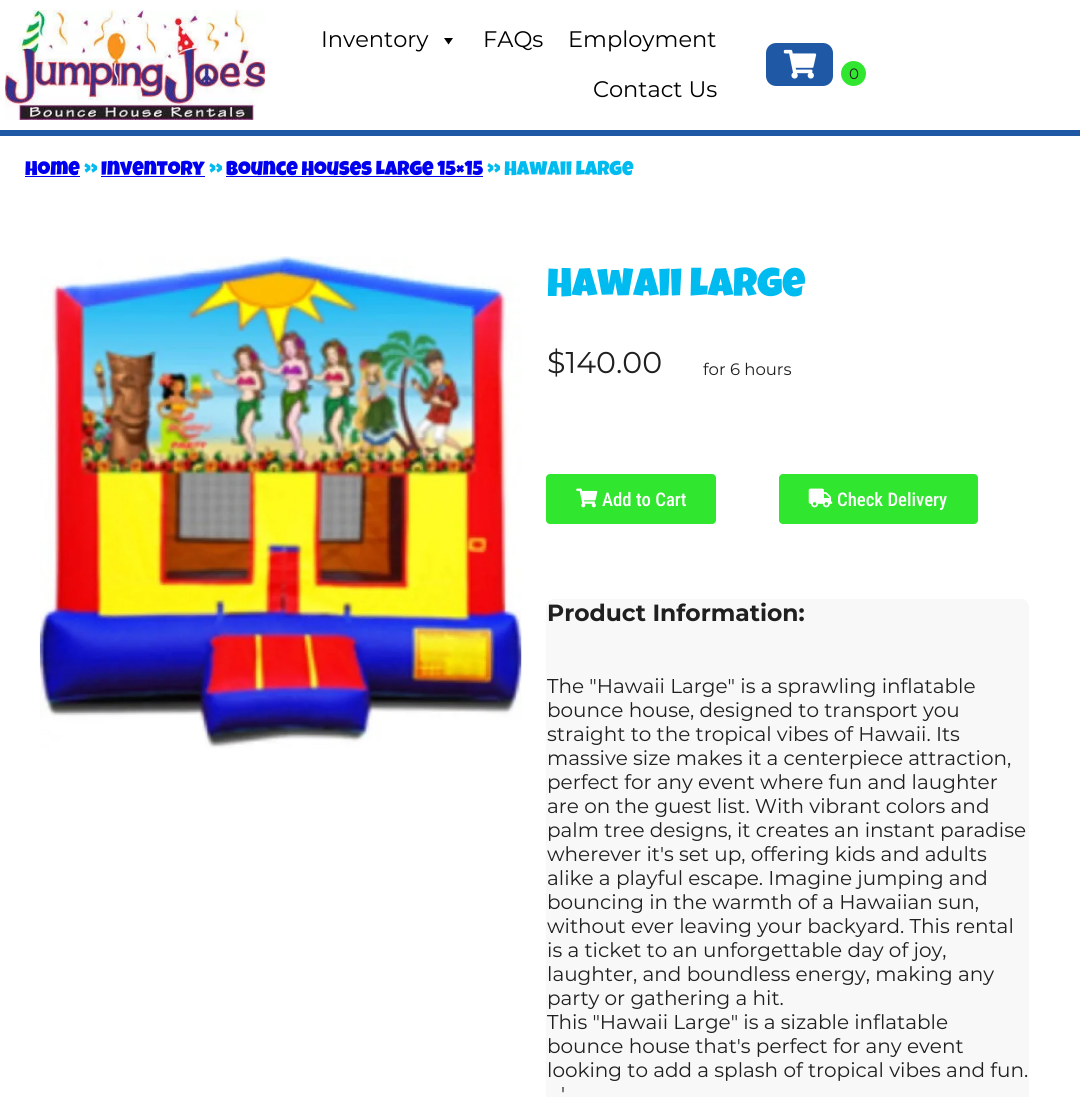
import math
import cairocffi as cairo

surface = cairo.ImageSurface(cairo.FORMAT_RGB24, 1080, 1097)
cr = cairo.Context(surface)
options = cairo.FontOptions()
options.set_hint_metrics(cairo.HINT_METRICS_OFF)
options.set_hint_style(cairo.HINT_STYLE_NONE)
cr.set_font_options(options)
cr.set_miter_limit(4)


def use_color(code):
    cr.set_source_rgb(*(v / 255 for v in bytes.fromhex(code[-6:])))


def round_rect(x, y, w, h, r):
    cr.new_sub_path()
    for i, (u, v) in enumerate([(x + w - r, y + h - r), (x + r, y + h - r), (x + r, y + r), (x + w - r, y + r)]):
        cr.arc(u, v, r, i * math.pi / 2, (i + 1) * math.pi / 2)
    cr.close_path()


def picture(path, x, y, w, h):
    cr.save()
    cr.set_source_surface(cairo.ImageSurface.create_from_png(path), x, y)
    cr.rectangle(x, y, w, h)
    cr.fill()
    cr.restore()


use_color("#ffffff")
cr.paint()
use_color("#1f59a6")
cr.rectangle(0, 130, 1080, 6)
cr.fill()
picture("img1.png", 5, 10, 260, 110)
cr.select_font_face("Montserrat")
cr.set_font_size(22.5)
use_color("#000000")
cr.move_to(321, 47)
cr.show_text("Inventory")
cr.new_path()
cr.move_to(453, 38)
cr.line_to(448.5, 44.5)
cr.line_to(444, 38)
cr.close_path()
cr.fill()
cr.move_to(483, 47)
cr.show_text("FAQs")
cr.move_to(568, 47)
cr.show_text("Employment")
cr.move_to(593, 97)
cr.show_text("Contact Us")
use_color("#1f59a6")
round_rect(766, 43, 67, 43, 10)
cr.fill()
picture("img2.png", 783, 49, 34, 30)
use_color("#31e62f")
cr.arc(853.5, 73.5, 12.5, 0, 2 * math.pi)
cr.fill()
cr.set_font_size(15)
use_color("#202020")
cr.move_to(849, 79)
cr.show_text("0")
cr.select_font_face("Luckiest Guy")
cr.set_font_size(20)
use_color("#0000ee")
cr.move_to(25, 175)
cr.show_text("Home")
cr.rectangle(25, 176, 55, 1)
cr.fill()
use_color("#00bbef")
cr.move_to(84, 175)
cr.show_text("»")
use_color("#0000ee")
cr.move_to(101, 175)
cr.show_text("Inventory")
cr.rectangle(101, 176, 104, 1)
cr.fill()
use_color("#00bbef")
cr.move_to(209, 175)
cr.show_text("»")
use_color("#0000ee")
cr.move_to(226, 175)
cr.show_text("Bounce Houses Large 15×15")
cr.rectangle(226, 176, 257, 1)
cr.fill()
use_color("#00bbef")
cr.move_to(487, 175)
cr.show_text("» Hawaii large")
picture("img3.png", 39, 256, 483, 493)
cr.set_font_size(40)
cr.move_to(547, 296)
cr.show_text("Hawaii large")
cr.select_font_face("Montserrat")
cr.set_font_size(30)
use_color("#202020")
cr.move_to(547, 373)
cr.show_text("$140.00")
cr.set_font_size(16.5)
cr.move_to(703, 375)
cr.show_text("for 6 hours")
use_color("#31e62f")
round_rect(546, 474, 170, 50, 4)
cr.fill()
picture("img4.png", 576, 488, 22, 20)
cr.select_font_face("Roboto Condensed Medium")
cr.set_font_size(18.75)
use_color("#ffffff")
cr.move_to(602, 506)
cr.show_text("Add to Cart")
use_color("#31e62f")
round_rect(779, 474, 199, 50, 4)
cr.fill()
picture("img5.png", 808, 488, 25, 20)
use_color("#ffffff")
cr.move_to(837, 506)
cr.show_text("Check Delivery")
use_color("#f8f8f8")
round_rect(546, 599, 483, 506, 8)
cr.fill()
cr.select_font_face("Montserrat", cairo.FONT_SLANT_NORMAL, cairo.FONT_WEIGHT_BOLD)
cr.set_font_size(23.4)
use_color("#202020")
cr.move_to(547, 621)
cr.show_text("Product Information:")
cr.select_font_face("Montserrat")
cr.set_font_size(20)
cr.move_to(547, 693)
cr.show_text("The \"Hawaii Large\" is a sprawling inflatable")
cr.move_to(547, 717)
cr.show_text("bounce house, designed to transport you")
cr.move_to(547, 741)
cr.show_text("straight to the tropical vibes of Hawaii. Its")
cr.move_to(547, 765)
cr.show_text("massive size makes it a centerpiece attraction,")
cr.move_to(547, 789)
cr.show_text("perfect for any event where fun and laughter")
cr.move_to(547, 813)
cr.show_text("are on the guest list. With vibrant colors and")
cr.move_to(547, 837)
cr.show_text("palm tree designs, it creates an instant paradise")
cr.move_to(547, 861)
cr.show_text("wherever it's set up, offering kids and adults")
cr.move_to(547, 885)
cr.show_text("alike a playful escape. Imagine jumping and")
cr.move_to(547, 909)
cr.show_text("bouncing in the warmth of a Hawaiian sun,")
cr.move_to(547, 933)
cr.show_text("without ever leaving your backyard. This rental")
cr.move_to(547, 957)
cr.show_text("is a ticket to an unforgettable day of joy,")
cr.move_to(547, 981)
cr.show_text("laughter, and boundless energy, making any")
cr.move_to(547, 1005)
cr.show_text("party or gathering a hit.")
cr.move_to(547, 1029)
cr.show_text("This \"Hawaii Large\" is a sizable inflatable")
cr.move_to(547, 1053)
cr.show_text("bounce house that's perfect for any event")
cr.move_to(547, 1077)
cr.show_text("looking to add a splash of tropical vibes and fun.")
cr.move_to(561, 1101)
cr.show_text("'")
surface.write_to_png("result.png")
